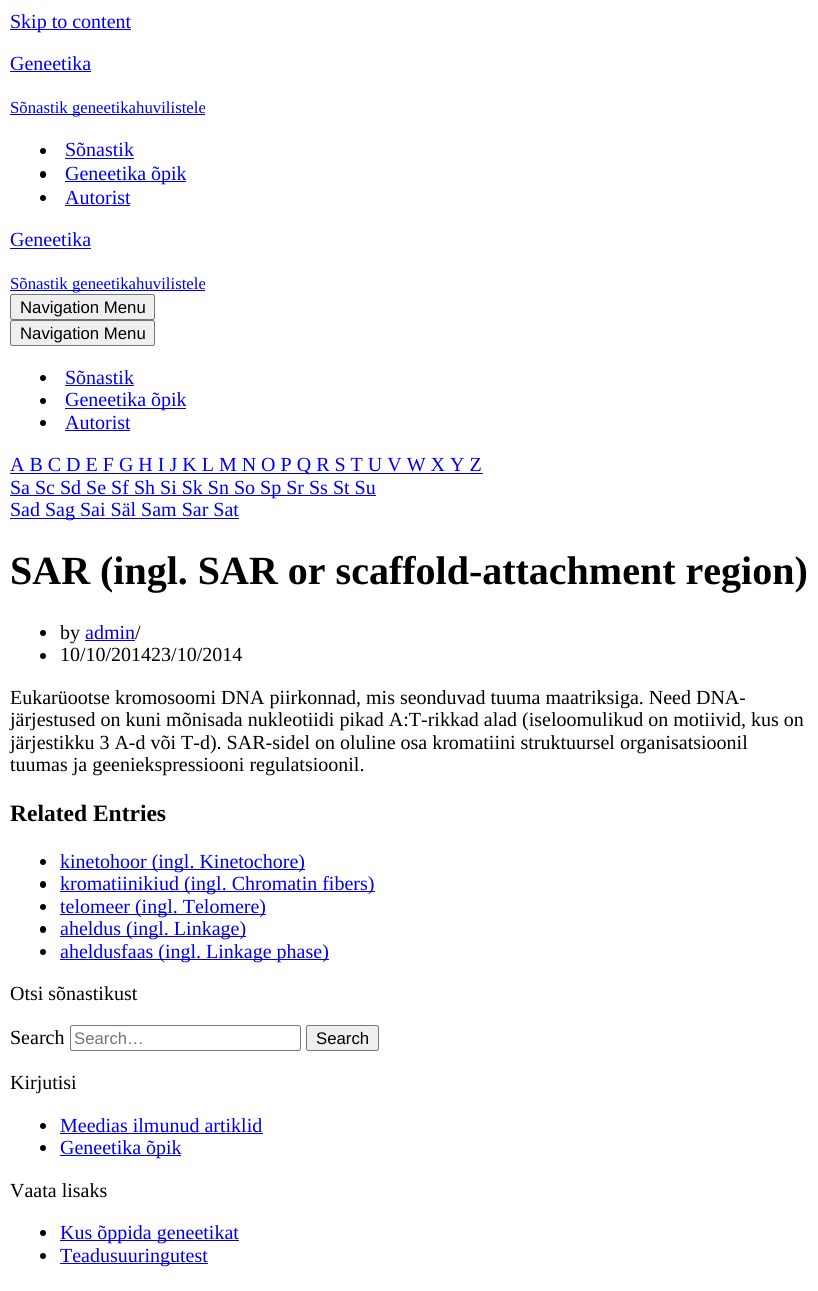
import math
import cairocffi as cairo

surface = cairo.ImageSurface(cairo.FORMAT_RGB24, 818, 1291)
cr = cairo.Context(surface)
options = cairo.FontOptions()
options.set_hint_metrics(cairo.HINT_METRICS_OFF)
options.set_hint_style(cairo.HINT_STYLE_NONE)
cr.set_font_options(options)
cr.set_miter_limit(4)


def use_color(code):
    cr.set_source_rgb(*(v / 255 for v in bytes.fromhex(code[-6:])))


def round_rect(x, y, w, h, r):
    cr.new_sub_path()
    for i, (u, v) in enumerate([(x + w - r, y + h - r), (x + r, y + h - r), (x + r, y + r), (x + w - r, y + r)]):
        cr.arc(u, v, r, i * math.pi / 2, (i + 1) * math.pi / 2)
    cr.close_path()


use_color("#ffffff")
cr.paint()
use_color("#0000ee")
cr.rectangle(10, 29, 121, 1)
cr.fill()
cr.select_font_face("Liberation Serif")
cr.set_font_size(20)
cr.move_to(10, 28)
cr.show_text("Skip to content")
cr.move_to(10, 70)
cr.show_text("Geneetika")
cr.rectangle(10, 71, 81, 1)
cr.fill()
cr.rectangle(10, 114, 195, 1)
cr.fill()
cr.set_font_size(16.75)
cr.move_to(10, 113)
cr.show_text("Sõnastik geneetikahuvilistele")
use_color("#000000")
cr.new_path()
cr.arc(43, 151, 3, 0, 2 * math.pi)
cr.fill()
cr.set_font_size(20)
use_color("#0000ee")
cr.move_to(65, 156)
cr.show_text("Sõnastik")
cr.rectangle(65, 158, 69, 1)
cr.fill()
use_color("#000000")
round_rect(40, 171, 6, 7, 3)
cr.fill()
use_color("#0000ee")
cr.rectangle(65, 181, 121, 1)
cr.fill()
cr.move_to(65, 180)
cr.show_text("Geneetika õpik")
use_color("#000000")
cr.new_path()
cr.arc(43, 198, 3, 0, 2 * math.pi)
cr.fill()
use_color("#0000ee")
cr.move_to(65, 204)
cr.show_text("Autorist")
cr.rectangle(65, 205, 65, 1)
cr.fill()
cr.move_to(10, 246)
cr.show_text("Geneetika")
cr.rectangle(10, 248, 81, 1)
cr.fill()
cr.rectangle(10, 290, 195, 1)
cr.fill()
cr.set_font_size(16.75)
cr.move_to(10, 289)
cr.show_text("Sõnastik geneetikahuvilistele")
use_color("#efefef")
round_rect(10.5, 294.5, 144, 25, 2)
cr.fill_preserve()
use_color("#767676")
cr.set_line_width(1)
cr.stroke()
cr.select_font_face("Liberation Sans")
use_color("#000000")
cr.move_to(20, 313)
cr.show_text("Navigation Menu")
use_color("#efefef")
round_rect(10.5, 320.5, 144, 25, 2)
cr.fill_preserve()
use_color("#767676")
cr.stroke()
use_color("#000000")
cr.move_to(20, 339)
cr.show_text("Navigation Menu")
cr.new_path()
cr.arc(43, 378, 3, 0, 2 * math.pi)
cr.fill()
cr.select_font_face("Liberation Serif")
cr.set_font_size(20)
use_color("#0000ee")
cr.move_to(65, 384)
cr.show_text("Sõnastik")
cr.rectangle(65, 385, 69, 1)
cr.fill()
use_color("#000000")
cr.arc(43, 401, 3, 0, 2 * math.pi)
cr.fill()
use_color("#0000ee")
cr.rectangle(65, 408, 121, 1)
cr.fill()
cr.move_to(65, 406)
cr.show_text("Geneetika õpik")
use_color("#000000")
cr.new_path()
cr.arc(43, 423, 3, 0, 2 * math.pi)
cr.fill()
use_color("#0000ee")
cr.move_to(65, 429)
cr.show_text("Autorist")
cr.rectangle(65, 430, 65, 1)
cr.fill()
cr.rectangle(10, 473, 473, 1)
cr.fill()
cr.move_to(10, 471)
cr.show_text("A B C D E F G H I J K L M N O P Q R S T U V W X Y Z")
cr.rectangle(10, 495, 366, 1)
cr.fill()
cr.move_to(10, 494)
cr.show_text("Sa Sc Sd Se Sf Sh Si Sk Sn So Sp Sr Ss St Su")
cr.rectangle(10, 518, 229, 1)
cr.fill()
cr.move_to(10, 516)
cr.show_text("Sad Sag Sai Säl Sam Sar Sat")
cr.select_font_face("Liberation Serif", cairo.FONT_SLANT_NORMAL, cairo.FONT_WEIGHT_BOLD)
cr.set_font_size(40)
use_color("#000000")
cr.move_to(10, 584)
cr.show_text("SAR (ingl. SAR or scaffold-attachment region)")
cr.new_path()
cr.arc(43, 633, 3, 0, 2 * math.pi)
cr.fill()
cr.select_font_face("Liberation Serif")
cr.set_font_size(20)
cr.move_to(60, 639)
cr.show_text("by")
use_color("#0000ee")
cr.move_to(85, 639)
cr.show_text("admin")
cr.rectangle(85, 640, 50, 1)
cr.fill()
use_color("#000000")
cr.move_to(135, 639)
cr.show_text("/")
cr.new_path()
cr.arc(43, 656, 3, 0, 2 * math.pi)
cr.fill()
cr.move_to(60, 661)
cr.show_text("10/10/201423/10/2014")
cr.move_to(10, 704)
cr.show_text("Eukarüootse kromosoomi DNA piirkonnad, mis seonduvad tuuma maatriksiga. Need DNA-")
cr.move_to(10, 726)
cr.show_text("järjestused on kuni mõnisada nukleotiidi pikad A:T-rikkad alad (iseloomulikud on motiivid, kus on")
cr.move_to(10, 749)
cr.show_text("järjestikku 3 A-d või T-d). SAR-sidel on oluline osa kromatiini struktuursel organisatsioonil")
cr.move_to(10, 771)
cr.show_text("tuumas ja geeniekspressiooni regulatsioonil.")
cr.select_font_face("Liberation Serif", cairo.FONT_SLANT_NORMAL, cairo.FONT_WEIGHT_BOLD)
cr.set_font_size(23.5)
cr.move_to(10, 821)
cr.show_text("Related Entries")
cr.new_path()
cr.arc(43, 862, 3, 0, 2 * math.pi)
cr.fill()
use_color("#0000ee")
cr.rectangle(60, 869, 245, 1)
cr.fill()
cr.select_font_face("Liberation Serif")
cr.set_font_size(20)
cr.move_to(60, 868)
cr.show_text("kinetohoor (ingl. Kinetochore)")
use_color("#000000")
round_rect(40, 881, 6, 7, 3)
cr.fill()
use_color("#0000ee")
cr.rectangle(60, 891, 315, 1)
cr.fill()
cr.move_to(60, 890)
cr.show_text("kromatiinikiud (ingl. Chromatin fibers)")
use_color("#000000")
cr.new_path()
cr.arc(43, 907, 3, 0, 2 * math.pi)
cr.fill()
use_color("#0000ee")
cr.rectangle(60, 914, 206, 1)
cr.fill()
cr.move_to(60, 913)
cr.show_text("telomeer (ingl. Telomere)")
use_color("#000000")
round_rect(40, 926, 6, 7, 3)
cr.fill()
use_color("#0000ee")
cr.rectangle(60, 936, 186, 1)
cr.fill()
cr.move_to(60, 935)
cr.show_text("aheldus (ingl. Linkage)")
use_color("#000000")
cr.new_path()
cr.arc(43, 952, 3, 0, 2 * math.pi)
cr.fill()
use_color("#0000ee")
cr.rectangle(60, 959, 269, 1)
cr.fill()
cr.move_to(60, 958)
cr.show_text("aheldusfaas (ingl. Linkage phase)")
use_color("#000000")
cr.move_to(10, 1000)
cr.show_text("Otsi sõnastikust")
cr.move_to(10, 1044)
cr.show_text("Search")
round_rect(70.5, 1025.5, 230, 25, 2)
use_color("#767676")
cr.stroke()
cr.select_font_face("Liberation Sans")
cr.set_font_size(16.75)
use_color("#757575")
cr.move_to(74, 1044)
cr.show_text("Search…")
use_color("#efefef")
round_rect(306.5, 1025.5, 72, 25, 2)
cr.fill_preserve()
use_color("#767676")
cr.stroke()
use_color("#000000")
cr.move_to(316, 1044)
cr.show_text("Search")
cr.select_font_face("Liberation Serif")
cr.set_font_size(20)
cr.move_to(10, 1089)
cr.show_text("Kirjutisi")
cr.new_path()
cr.arc(43, 1126, 3, 0, 2 * math.pi)
cr.fill()
use_color("#0000ee")
cr.move_to(60, 1132)
cr.show_text("Meedias ilmunud artiklid")
cr.rectangle(60, 1133, 203, 1)
cr.fill()
use_color("#000000")
cr.arc(43, 1148, 3, 0, 2 * math.pi)
cr.fill()
use_color("#0000ee")
cr.rectangle(60, 1155, 121, 1)
cr.fill()
cr.move_to(60, 1154)
cr.show_text("Geneetika õpik")
use_color("#000000")
cr.move_to(10, 1197)
cr.show_text("Vaata lisaks")
cr.new_path()
cr.arc(43, 1233, 3, 0, 2 * math.pi)
cr.fill()
use_color("#0000ee")
cr.rectangle(60, 1240, 179, 1)
cr.fill()
cr.move_to(60, 1239)
cr.show_text("Kus õppida geneetikat")
use_color("#000000")
cr.new_path()
cr.arc(43, 1256, 3, 0, 2 * math.pi)
cr.fill()
use_color("#0000ee")
cr.rectangle(60, 1263, 148, 1)
cr.fill()
cr.move_to(60, 1262)
cr.show_text("Teadusuuringutest")
surface.write_to_png("result.png")
